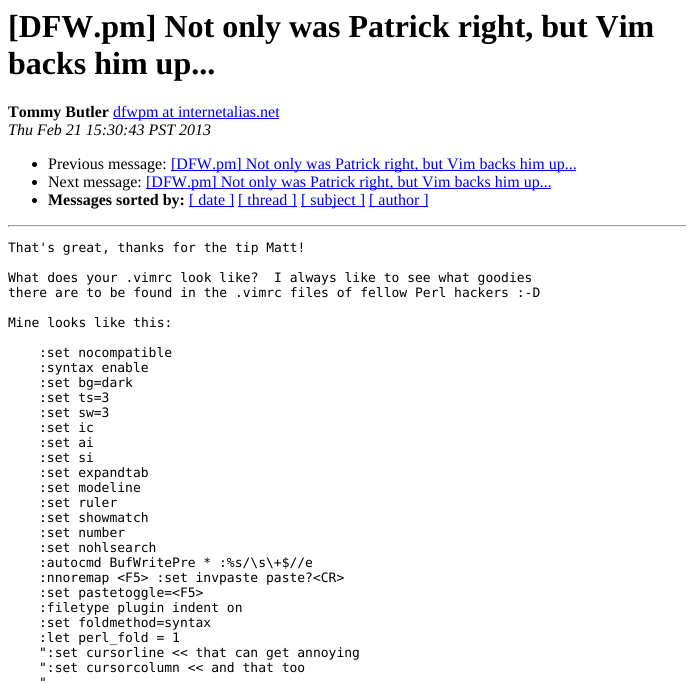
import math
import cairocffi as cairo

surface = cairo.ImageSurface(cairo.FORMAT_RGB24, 695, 683)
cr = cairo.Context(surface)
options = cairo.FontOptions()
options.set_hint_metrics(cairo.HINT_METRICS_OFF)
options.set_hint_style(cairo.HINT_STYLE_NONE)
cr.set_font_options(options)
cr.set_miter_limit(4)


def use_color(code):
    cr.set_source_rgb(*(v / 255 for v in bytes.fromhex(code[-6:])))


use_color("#ffffff")
cr.paint()
cr.select_font_face("Liberation Serif", cairo.FONT_SLANT_NORMAL, cairo.FONT_WEIGHT_BOLD)
cr.set_font_size(32)
use_color("#000000")
cr.move_to(8, 37)
cr.show_text("[DFW.pm] Not only was Patrick right, but Vim")
cr.move_to(8, 74)
cr.show_text("backs him up...")
cr.set_font_size(16)
cr.move_to(8, 117)
cr.show_text("Tommy Butler")
use_color("#0000ee")
cr.rectangle(113, 118, 166, 1)
cr.fill()
cr.select_font_face("Liberation Serif")
cr.move_to(113, 117)
cr.show_text("dfwpm at internetalias.net")
cr.select_font_face("Liberation Serif", cairo.FONT_SLANT_ITALIC)
use_color("#000000")
cr.move_to(8, 135)
cr.show_text("Thu Feb 21 15:30:43 PST 2013")
cr.new_path()
cr.arc(34.5, 164.5, 2.5, 0, 2 * math.pi)
cr.fill()
cr.select_font_face("Liberation Serif")
cr.move_to(48, 169)
cr.show_text("Previous message:")
use_color("#0000ee")
cr.rectangle(171, 170, 405, 1)
cr.fill()
cr.move_to(171, 169)
cr.show_text("[DFW.pm] Not only was Patrick right, but Vim backs him up...")
use_color("#000000")
cr.new_path()
cr.arc(34.5, 182.5, 2.5, 0, 2 * math.pi)
cr.fill()
cr.move_to(48, 187)
cr.show_text("Next message:")
use_color("#0000ee")
cr.rectangle(146, 188, 405, 1)
cr.fill()
cr.move_to(146, 187)
cr.show_text("[DFW.pm] Not only was Patrick right, but Vim backs him up...")
use_color("#000000")
cr.new_path()
cr.arc(34.5, 200.5, 2.5, 0, 2 * math.pi)
cr.fill()
cr.select_font_face("Liberation Serif", cairo.FONT_SLANT_NORMAL, cairo.FONT_WEIGHT_BOLD)
cr.move_to(48, 205)
cr.show_text("Messages sorted by:")
use_color("#0000ee")
cr.rectangle(189, 206, 45, 1)
cr.fill()
cr.select_font_face("Liberation Serif")
cr.move_to(189, 205)
cr.show_text("[ date ]")
cr.rectangle(238, 206, 59, 1)
cr.fill()
cr.move_to(238, 205)
cr.show_text("[ thread ]")
cr.rectangle(301, 206, 64, 1)
cr.fill()
cr.move_to(301, 205)
cr.show_text("[ subject ]")
cr.rectangle(369, 206, 59, 1)
cr.fill()
cr.move_to(369, 205)
cr.show_text("[ author ]")
use_color("#9f9f9f")
cr.rectangle(8, 225, 679, 1)
cr.fill()
use_color("#eeeeee")
cr.rectangle(686, 225, 1, 2)
cr.fill()
cr.rectangle(8, 226, 679, 1)
cr.fill()
use_color("#9f9f9f")
cr.rectangle(8, 225, 1, 2)
cr.fill()
cr.select_font_face("DejaVu Sans Mono")
cr.set_font_size(13)
use_color("#000000")
cr.move_to(8, 252)
cr.show_text("That's great, thanks for the tip Matt!")
cr.move_to(8, 282)
cr.show_text("What does your .vimrc look like?  I always like to see what goodies")
cr.move_to(8, 297)
cr.show_text("there are to be found in the .vimrc files of fellow Perl hackers :-D")
cr.move_to(8, 327)
cr.show_text("Mine looks like this:")
cr.move_to(39, 357)
cr.show_text(":set nocompatible")
cr.move_to(39, 372)
cr.show_text(":syntax enable")
cr.move_to(39, 387)
cr.show_text(":set bg=dark")
cr.move_to(39, 402)
cr.show_text(":set ts=3")
cr.move_to(39, 417)
cr.show_text(":set sw=3")
cr.move_to(39, 432)
cr.show_text(":set ic")
cr.move_to(39, 447)
cr.show_text(":set ai")
cr.move_to(39, 462)
cr.show_text(":set si")
cr.move_to(39, 477)
cr.show_text(":set expandtab")
cr.move_to(39, 492)
cr.show_text(":set modeline")
cr.move_to(39, 507)
cr.show_text(":set ruler")
cr.move_to(39, 522)
cr.show_text(":set showmatch")
cr.move_to(39, 537)
cr.show_text(":set number")
cr.move_to(39, 552)
cr.show_text(":set nohlsearch")
cr.move_to(39, 567)
cr.show_text(":autocmd BufWritePre * :%s/\\s\\+$//e")
cr.move_to(39, 582)
cr.show_text(":nnoremap <F5> :set invpaste paste?<CR>")
cr.move_to(39, 597)
cr.show_text(":set pastetoggle=<F5>")
cr.move_to(39, 612)
cr.show_text(":filetype plugin indent on")
cr.move_to(39, 627)
cr.show_text(":set foldmethod=syntax")
cr.move_to(39, 642)
cr.show_text(":let perl_fold = 1")
cr.move_to(39, 657)
cr.show_text("\":set cursorline << that can get annoying")
cr.move_to(39, 672)
cr.show_text("\":set cursorcolumn << and that too")
cr.move_to(39, 687)
cr.show_text("\"")
surface.write_to_png("result.png")
